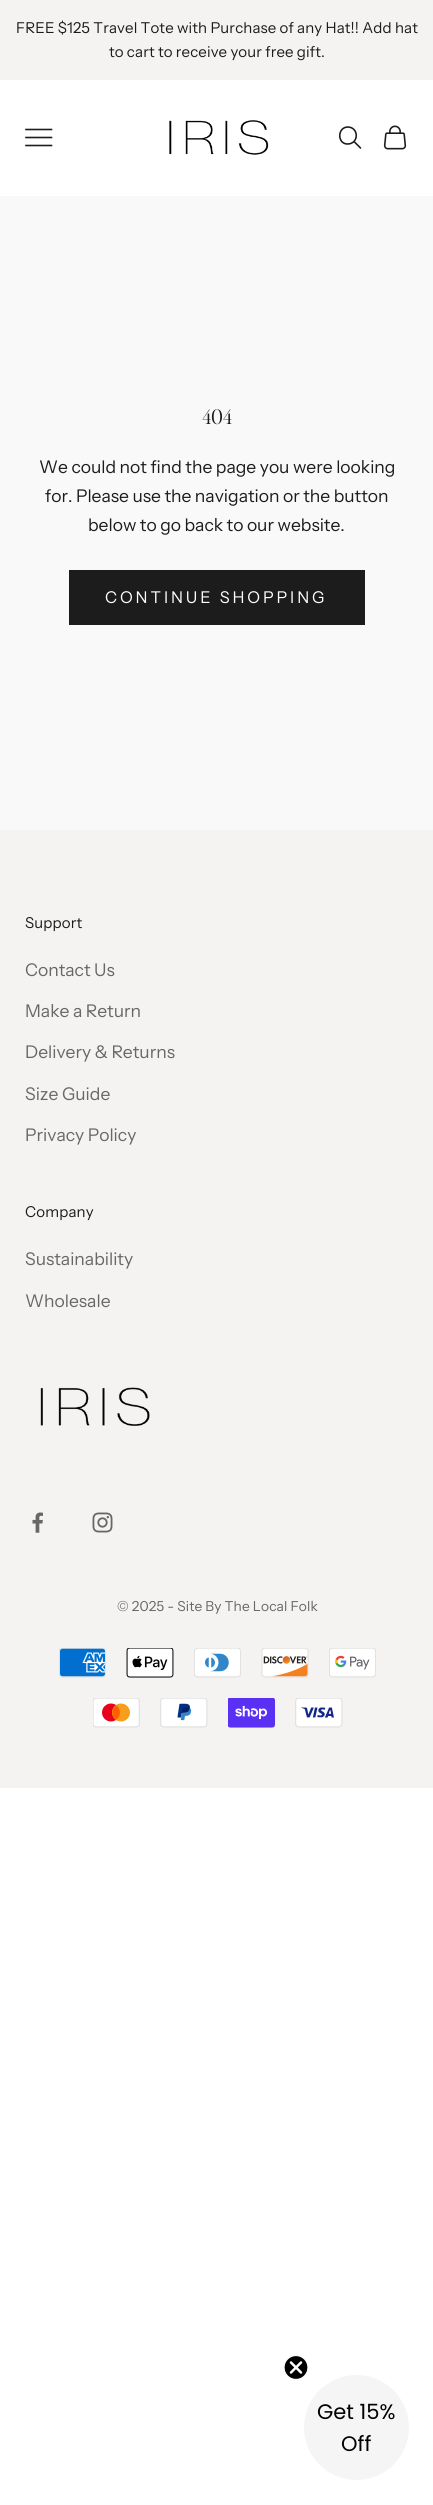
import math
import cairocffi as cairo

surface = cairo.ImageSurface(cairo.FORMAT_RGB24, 433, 2505)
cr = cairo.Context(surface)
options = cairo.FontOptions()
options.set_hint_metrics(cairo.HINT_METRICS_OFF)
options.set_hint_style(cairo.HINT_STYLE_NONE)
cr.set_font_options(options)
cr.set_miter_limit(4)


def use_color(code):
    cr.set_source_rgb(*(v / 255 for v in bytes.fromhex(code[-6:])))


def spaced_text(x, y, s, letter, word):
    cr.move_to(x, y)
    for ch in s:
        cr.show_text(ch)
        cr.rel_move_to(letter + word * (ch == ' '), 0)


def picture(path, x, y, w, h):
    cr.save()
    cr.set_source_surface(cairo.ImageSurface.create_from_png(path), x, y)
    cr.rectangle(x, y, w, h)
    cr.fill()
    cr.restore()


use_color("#ffffff")
cr.paint()
use_color("#f4f3f2")
cr.rectangle(0, 0, 433, 80)
cr.fill()
cr.select_font_face("Instrument Sans")
cr.set_font_size(15)
use_color("#1c1c1c")
spaced_text(16, 33, "FREE $125 Travel Tote with Purchase of any Hat!! Add hat", 0.15, 0)
spaced_text(109, 57, "to cart to receive your free gift.", 0.15, 0)
cr.new_path()
cr.move_to(26, 145.5)
cr.line_to(51.5, 145.5)
cr.move_to(26, 137.5)
cr.line_to(51.5, 137.5)
cr.move_to(26, 129.5)
cr.line_to(51.5, 129.5)
cr.set_line_width(1.6)
cr.set_line_cap(cairo.LINE_CAP_SQUARE)
cr.stroke()
picture("img1.png", 169, 120, 100, 35)
cr.new_path()
cr.move_to(348, 127)
cr.curve_to(337, 127, 337, 144.5, 348, 144)
cr.curve_to(359, 143.5, 359, 127.5, 348, 127)
cr.close_path()
cr.set_line_cap(cairo.LINE_CAP_BUTT)
cr.stroke()
cr.new_path()
cr.move_to(354.5, 142)
cr.line_to(360.5, 148)
cr.set_line_cap(cairo.LINE_CAP_ROUND)
cr.stroke()
picture("img2.png", 383, 125, 24, 25)
use_color("#f9f9f9")
cr.rectangle(0, 196, 433, 634)
cr.fill()
cr.select_font_face("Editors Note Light")
cr.set_font_size(20)
use_color("#1c1c1c")
cr.move_to(202, 424)
cr.show_text("404")
cr.select_font_face("Instrument Sans")
cr.set_font_size(17.5)
cr.move_to(39, 473)
cr.show_text("We could not find the page you were looking")
cr.move_to(45, 502)
cr.show_text("for. Please use the navigation or the button")
cr.move_to(88, 531)
cr.show_text("below to go back to our website.")
cr.rectangle(69.5, 570.5, 295, 54)
cr.fill_preserve()
cr.set_line_width(1)
cr.set_line_cap(cairo.LINE_CAP_BUTT)
cr.stroke()
cr.set_font_size(16.25)
use_color("#ffffff")
spaced_text(105, 603, "CONTINUE SHOPPING", 2.9, 0)
use_color("#f4f3f2")
cr.rectangle(0, 830, 433, 958)
cr.fill()
cr.set_font_size(15)
use_color("#1c1c1c")
spaced_text(25, 928, "Support", 0.15, 0)
cr.set_font_size(17.5)
use_color("#686767")
cr.move_to(25, 976)
cr.show_text("Contact Us")
cr.move_to(25, 1017)
cr.show_text("Make a Return")
cr.move_to(25, 1058)
cr.show_text("Delivery & Returns")
cr.move_to(25, 1100)
cr.show_text("Size Guide")
cr.move_to(25, 1141)
cr.show_text("Privacy Policy")
cr.set_font_size(15)
use_color("#1c1c1c")
spaced_text(25, 1217, "Company", 0.15, 0)
cr.set_font_size(17.5)
use_color("#686767")
cr.move_to(25, 1265)
cr.show_text("Sustainability")
cr.move_to(25, 1307)
cr.show_text("Wholesale")
picture("img3.png", 40, 1387, 110, 39)
picture("img4.png", 32, 1512, 11, 21)
picture("img5.png", 92, 1512, 21, 21)
cr.set_font_size(13.75)
spaced_text(117, 1611, "© 2025 - Site By The Local Folk", 0.15, 0)
picture("img6.png", 59, 1648, 47, 30)
picture("img7.png", 126, 1648, 48, 30)
picture("img8.png", 194, 1648, 47, 30)
picture("img9.png", 261, 1648, 48, 30)
picture("img10.png", 329, 1648, 47, 30)
picture("img11.png", 93, 1698, 47, 30)
picture("img12.png", 160, 1698, 48, 30)
picture("img13.png", 228, 1698, 47, 30)
picture("img14.png", 295, 1698, 48, 30)
use_color("#f5f5f5")
cr.arc(356.5, 2427.5, 52.5, 0, 2 * math.pi)
cr.fill()
use_color("#000000")
cr.arc(296, 2367.5, 12, 0, 2 * math.pi)
cr.fill_preserve()
use_color("#ffffff")
cr.set_line_width(1.2)
cr.stroke()
cr.new_path()
cr.move_to(291, 2362.5)
cr.line_to(301, 2372.5)
cr.move_to(291, 2372.5)
cr.line_to(301, 2362.5)
cr.close_path()
cr.set_line_width(2.5)
cr.set_line_cap(cairo.LINE_CAP_ROUND)
cr.set_line_join(cairo.LINE_JOIN_ROUND)
cr.stroke()
cr.select_font_face("Poppins")
cr.set_font_size(21)
use_color("#000000")
cr.move_to(317, 2419)
cr.show_text("Get 15%")
cr.move_to(341, 2451)
cr.show_text("Off")
surface.write_to_png("result.png")
